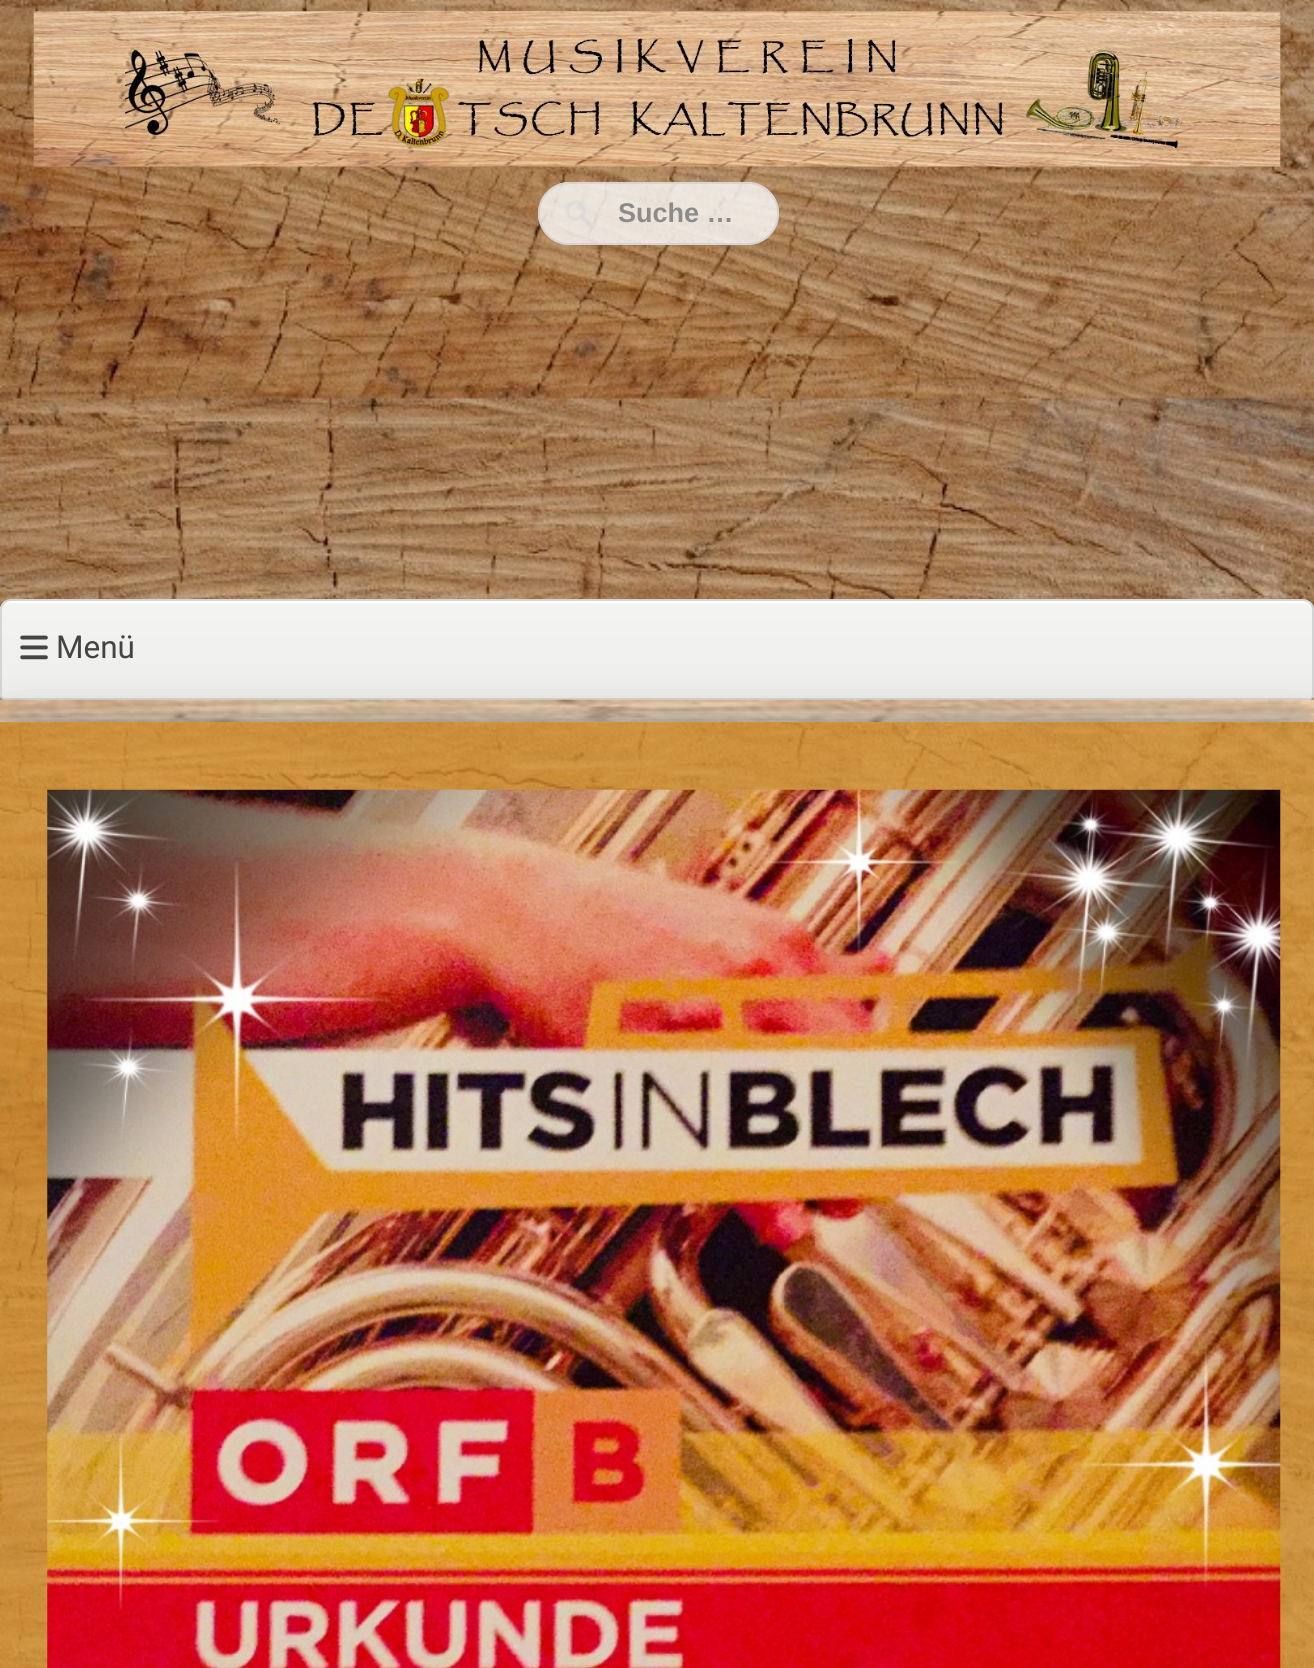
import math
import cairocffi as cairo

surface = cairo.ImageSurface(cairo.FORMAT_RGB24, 1314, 1668)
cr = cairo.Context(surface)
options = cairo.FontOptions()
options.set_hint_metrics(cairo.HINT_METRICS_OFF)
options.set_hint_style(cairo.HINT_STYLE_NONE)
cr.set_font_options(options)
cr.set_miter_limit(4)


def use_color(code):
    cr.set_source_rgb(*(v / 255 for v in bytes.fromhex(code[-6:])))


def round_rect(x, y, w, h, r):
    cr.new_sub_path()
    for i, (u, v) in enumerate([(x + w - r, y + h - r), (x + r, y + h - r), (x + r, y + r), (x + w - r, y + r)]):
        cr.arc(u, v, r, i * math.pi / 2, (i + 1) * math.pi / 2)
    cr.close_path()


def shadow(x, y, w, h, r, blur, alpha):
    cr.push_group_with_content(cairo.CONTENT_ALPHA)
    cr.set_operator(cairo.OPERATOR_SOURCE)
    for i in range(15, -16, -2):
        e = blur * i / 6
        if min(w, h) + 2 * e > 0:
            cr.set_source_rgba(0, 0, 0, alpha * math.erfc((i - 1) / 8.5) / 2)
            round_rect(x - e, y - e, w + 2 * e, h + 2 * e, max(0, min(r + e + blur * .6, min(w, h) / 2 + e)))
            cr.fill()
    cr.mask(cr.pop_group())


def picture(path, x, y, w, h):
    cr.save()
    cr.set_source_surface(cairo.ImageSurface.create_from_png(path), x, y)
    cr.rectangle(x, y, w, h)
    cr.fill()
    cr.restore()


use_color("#ffffff")
cr.paint()
picture("img1.png", 0, 0, 1314, 1668)
picture("img2.png", 33, 11, 1248, 156)
cr.set_source_rgba(0.988, 0.988, 0.988, 0.8)
round_rect(538, 182, 241, 63, 31.5)
cr.fill()
picture("img3.png", 564, 200, 30, 28)
round_rect(539, 183, 239, 61, 30.5)
cr.set_source_rgba(0.82, 0.82, 0.82, 0.8)
cr.stroke()
cr.select_font_face("Liberation Sans", cairo.FONT_SLANT_NORMAL, cairo.FONT_WEIGHT_BOLD)
cr.set_font_size(27)
use_color("#8d8b89")
cr.move_to(618, 222)
cr.show_text("Suche …")
cr.save()
cr.new_path()
cr.move_to(11, 599)
cr.line_to(1303, 599)
cr.curve_to(1309, 599, 1314, 604, 1314, 610)
cr.line_to(1314, 695)
cr.curve_to(1314, 698, 1312, 700, 1309, 700)
cr.line_to(5, 700)
cr.curve_to(2, 700, 0, 698, 0, 695)
cr.line_to(0, 610)
cr.curve_to(0, 604, 5, 599, 11, 599)
cr.close_path()
cr.clip()
gradient = cairo.LinearGradient(657, 601, 657, 698)
gradient.add_color_stop_rgba(0, 0.957, 0.957, 0.949, 1)
gradient.add_color_stop_rgba(1, 0.929, 0.929, 0.922, 1)
cr.set_source(gradient)
cr.rectangle(0, 601, 1314, 97)
cr.fill()
cr.restore()
use_color("#fdfdfc")
cr.new_path()
cr.move_to(11, 603)
cr.line_to(1303, 603)
cr.curve_to(1308, 603, 1312, 607, 1312, 612)
cr.line_to(1312, 610)
cr.curve_to(1312, 605, 1308, 601, 1303, 601)
cr.line_to(11, 601)
cr.curve_to(6, 601, 2, 605, 2, 610)
cr.line_to(2, 612)
cr.curve_to(2, 607, 6, 603, 11, 603)
cr.close_path()
cr.fill()
cr.new_path()
cr.move_to(11, 600)
cr.line_to(1303, 600)
cr.curve_to(1308.5, 600, 1313, 604.5, 1313, 610)
cr.line_to(1313, 695)
cr.curve_to(1313, 697, 1311, 699, 1309, 699)
cr.line_to(5, 699)
cr.curve_to(3, 699, 1, 697, 1, 695)
cr.line_to(1, 610)
cr.curve_to(1, 604.5, 5.5, 600, 11, 600)
cr.close_path()
use_color("#d4d4d4")
cr.stroke()
picture("img4.png", 20, 635, 28, 25)
cr.select_font_face("Roboto")
cr.set_font_size(31.5)
use_color("#444444")
cr.move_to(56, 658)
cr.show_text("Menü")
picture("img6.png", 0, 699, 1314, 24)
cr.save()
cr.set_fill_rule(cairo.FILL_RULE_EVEN_ODD)
cr.new_path()
cr.move_to(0, 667)
cr.line_to(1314, 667)
cr.line_to(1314, 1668)
cr.line_to(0, 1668)
cr.close_path()
cr.move_to(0, 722)
cr.line_to(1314, 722)
cr.line_to(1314, 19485)
cr.curve_to(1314, 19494, 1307, 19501, 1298, 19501)
cr.line_to(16, 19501)
cr.curve_to(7, 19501, 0, 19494, 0, 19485)
cr.close_path()
cr.clip()
use_color("#85969f")
shadow(0, 722, 1314, 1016, 16, 18, 1)
cr.restore()
cr.set_source_rgba(0.867, 0.6, 0.2, 0.7)
cr.rectangle(0, 722, 1314, 946)
cr.fill()
picture("img5.png", 47, 789, 1234, 879)
surface.write_to_png("result.png")
